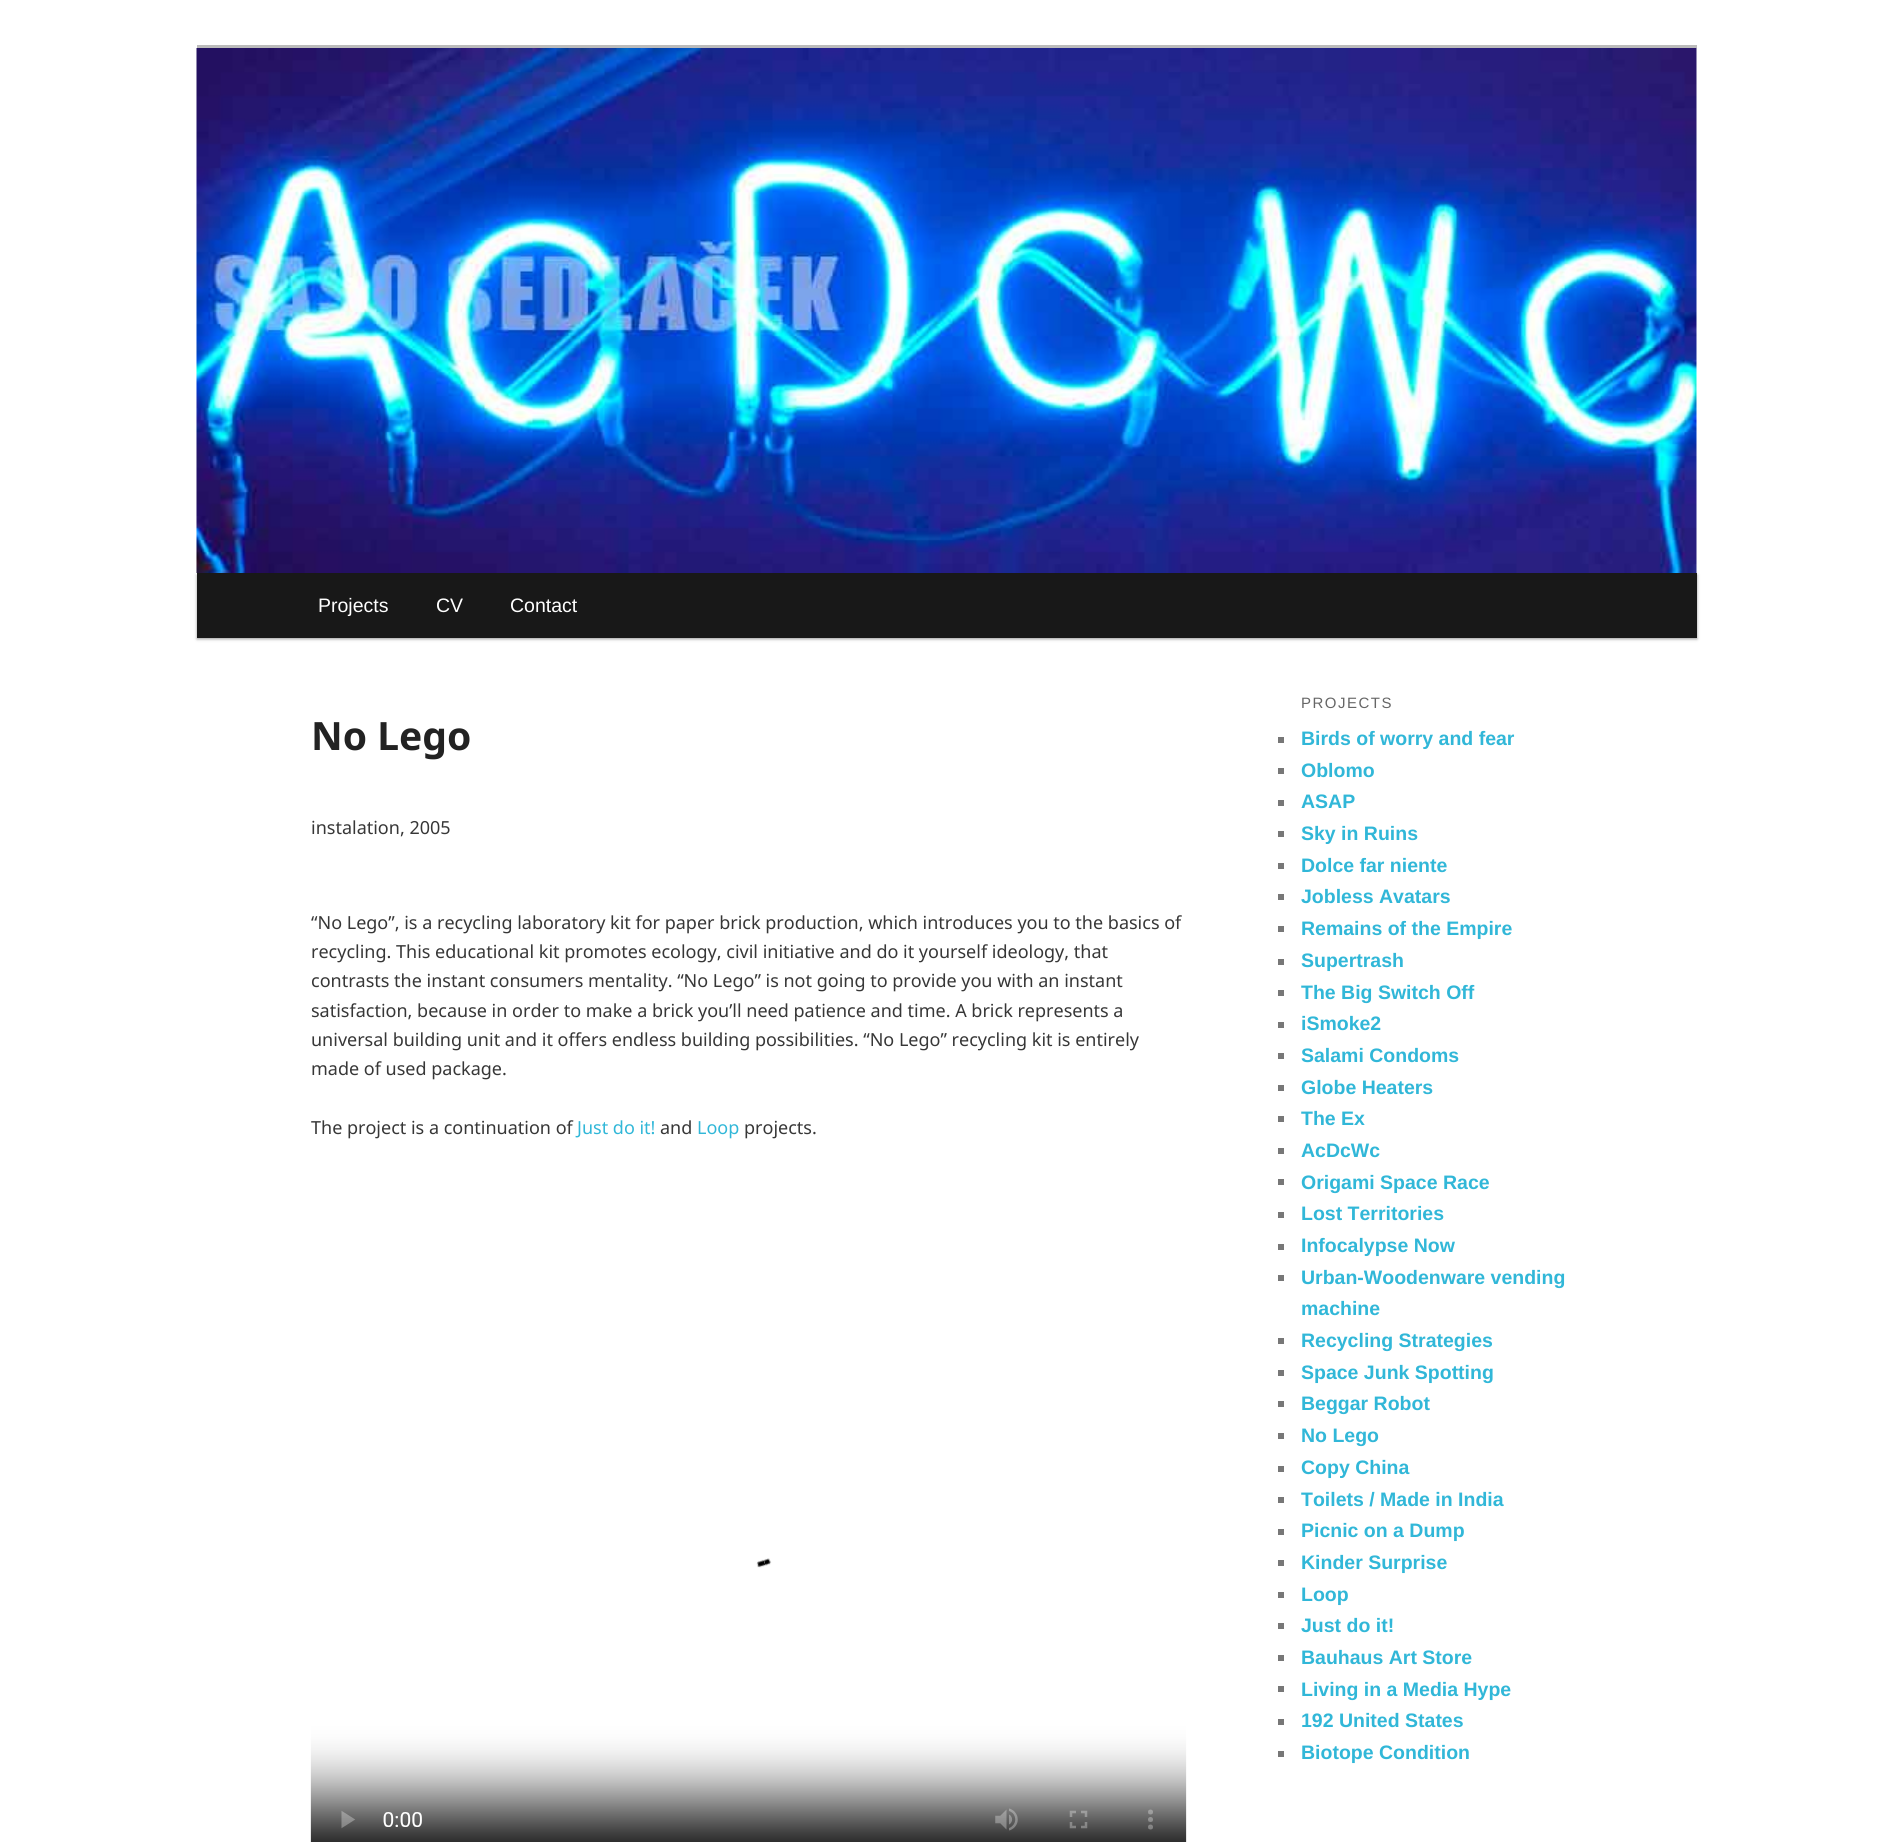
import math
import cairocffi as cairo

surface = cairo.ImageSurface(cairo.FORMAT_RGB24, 1892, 1842)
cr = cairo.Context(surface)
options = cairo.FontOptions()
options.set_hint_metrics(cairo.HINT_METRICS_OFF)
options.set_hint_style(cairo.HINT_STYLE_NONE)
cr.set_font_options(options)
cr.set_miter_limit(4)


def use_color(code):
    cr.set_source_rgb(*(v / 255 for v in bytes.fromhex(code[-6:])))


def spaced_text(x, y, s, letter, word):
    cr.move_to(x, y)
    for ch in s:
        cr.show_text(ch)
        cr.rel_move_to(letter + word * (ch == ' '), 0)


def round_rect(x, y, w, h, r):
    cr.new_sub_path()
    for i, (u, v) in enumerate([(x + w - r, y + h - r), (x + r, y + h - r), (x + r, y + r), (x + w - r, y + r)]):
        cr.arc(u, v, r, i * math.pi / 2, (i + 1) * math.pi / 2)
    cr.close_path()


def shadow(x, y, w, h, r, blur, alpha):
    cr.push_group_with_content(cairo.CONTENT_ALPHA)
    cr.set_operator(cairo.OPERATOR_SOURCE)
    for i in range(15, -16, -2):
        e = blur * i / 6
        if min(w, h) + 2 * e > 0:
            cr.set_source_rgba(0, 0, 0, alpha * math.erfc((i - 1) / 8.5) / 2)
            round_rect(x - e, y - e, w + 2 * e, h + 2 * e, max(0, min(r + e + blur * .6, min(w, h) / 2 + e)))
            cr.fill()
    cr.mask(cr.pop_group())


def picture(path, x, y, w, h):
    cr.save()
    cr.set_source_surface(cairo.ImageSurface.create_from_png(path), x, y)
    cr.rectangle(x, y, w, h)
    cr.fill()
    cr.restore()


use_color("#ffffff")
cr.paint()
use_color("#bbbbbb")
cr.rectangle(197, 45, 1500, 3)
cr.fill()
use_color("#000000")
shadow(197, 575, 1500, 64, 0, 1.5, 0.4)
picture("img1.png", 196, 48, 1501, 525)
use_color("#181818")
cr.rectangle(197, 573, 1500, 65)
cr.fill()
cr.select_font_face("Liberation Sans")
cr.set_font_size(19.5)
use_color("#ffffff")
cr.move_to(318, 612)
cr.show_text("Projects")
cr.move_to(436, 612)
cr.show_text("CV")
cr.move_to(510, 612)
cr.show_text("Contact")
cr.select_font_face("Noto Sans", cairo.FONT_SLANT_NORMAL, cairo.FONT_WEIGHT_BOLD)
cr.set_font_size(39)
use_color("#222222")
cr.move_to(311, 750)
cr.show_text("No Lego")
cr.select_font_face("Noto Sans")
cr.set_font_size(18)
use_color("#373737")
cr.move_to(311, 834)
cr.show_text("instalation, 2005")
cr.move_to(311, 929)
cr.show_text("“No Lego”, is a recycling laboratory kit for paper brick production, which introduces you to the basics of")
cr.move_to(311, 958)
cr.show_text("recycling. This educational kit promotes ecology, civil initiative and do it yourself ideology, that")
cr.move_to(311, 987)
cr.show_text("contrasts the instant consumers mentality. “No Lego” is not going to provide you with an instant")
cr.move_to(311, 1017)
cr.show_text("satisfaction, because in order to make a brick you’ll need patience and time. A brick represents a")
cr.move_to(311, 1046)
cr.show_text("universal building unit and it offers endless building possibilities. “No Lego” recycling kit is entirely")
cr.move_to(311, 1075)
cr.show_text("made of used package.")
cr.move_to(311, 1134)
cr.show_text("The project is a continuation of")
use_color("#31b7d8")
cr.move_to(577, 1134)
cr.show_text("Just do it!")
use_color("#373737")
cr.move_to(660, 1134)
cr.show_text("and")
use_color("#31b7d8")
cr.move_to(697, 1134)
cr.show_text("Loop")
use_color("#373737")
cr.move_to(744, 1134)
cr.show_text("projects.")
picture("img2.png", 310, 1558, 877, 284)
cr.select_font_face("Liberation Sans")
cr.set_font_size(15)
use_color("#666666")
spaced_text(1301, 708, "PROJECTS", 1.5, 0)
use_color("#777777")
cr.rectangle(1278, 737, 6, 6)
cr.fill()
cr.select_font_face("Liberation Sans", cairo.FONT_SLANT_NORMAL, cairo.FONT_WEIGHT_BOLD)
cr.set_font_size(19.5)
use_color("#31b7d8")
cr.move_to(1301, 745)
cr.show_text("Birds of worry and fear")
use_color("#777777")
cr.rectangle(1278, 768, 6, 6)
cr.fill()
use_color("#31b7d8")
cr.move_to(1301, 777)
cr.show_text("Oblomo")
use_color("#777777")
cr.rectangle(1278, 800, 6, 6)
cr.fill()
use_color("#31b7d8")
cr.move_to(1301, 808)
cr.show_text("ASAP")
use_color("#777777")
cr.rectangle(1278, 831, 6, 6)
cr.fill()
use_color("#31b7d8")
cr.move_to(1301, 840)
cr.show_text("Sky in Ruins")
use_color("#777777")
cr.rectangle(1278, 863, 6, 6)
cr.fill()
use_color("#31b7d8")
cr.move_to(1301, 872)
cr.show_text("Dolce far niente")
use_color("#777777")
cr.rectangle(1278, 894, 6, 6)
cr.fill()
use_color("#31b7d8")
cr.move_to(1301, 903)
cr.show_text("Jobless Avatars")
use_color("#777777")
cr.rectangle(1278, 926, 6, 6)
cr.fill()
use_color("#31b7d8")
cr.move_to(1301, 935)
cr.show_text("Remains of the Empire")
use_color("#777777")
cr.rectangle(1278, 959, 6, 6)
cr.fill()
use_color("#31b7d8")
cr.move_to(1301, 967)
cr.show_text("Supertrash")
use_color("#777777")
cr.rectangle(1278, 990, 6, 6)
cr.fill()
use_color("#31b7d8")
cr.move_to(1301, 999)
cr.show_text("The Big Switch Off")
use_color("#777777")
cr.rectangle(1278, 1022, 6, 6)
cr.fill()
use_color("#31b7d8")
cr.move_to(1301, 1030)
cr.show_text("iSmoke2")
use_color("#777777")
cr.rectangle(1278, 1053, 6, 6)
cr.fill()
use_color("#31b7d8")
cr.move_to(1301, 1062)
cr.show_text("Salami Condoms")
use_color("#777777")
cr.rectangle(1278, 1085, 6, 6)
cr.fill()
use_color("#31b7d8")
cr.move_to(1301, 1094)
cr.show_text("Globe Heaters")
use_color("#777777")
cr.rectangle(1278, 1116, 6, 6)
cr.fill()
use_color("#31b7d8")
cr.move_to(1301, 1125)
cr.show_text("The Ex")
use_color("#777777")
cr.rectangle(1278, 1148, 6, 6)
cr.fill()
use_color("#31b7d8")
cr.move_to(1301, 1157)
cr.show_text("AcDcWc")
use_color("#777777")
cr.rectangle(1278, 1179, 6, 6)
cr.fill()
use_color("#31b7d8")
cr.move_to(1301, 1189)
cr.show_text("Origami Space Race")
use_color("#777777")
cr.rectangle(1278, 1212, 6, 6)
cr.fill()
use_color("#31b7d8")
cr.move_to(1301, 1220)
cr.show_text("Lost Territories")
use_color("#777777")
cr.rectangle(1278, 1244, 6, 6)
cr.fill()
use_color("#31b7d8")
cr.move_to(1301, 1252)
cr.show_text("Infocalypse Now")
use_color("#777777")
cr.rectangle(1278, 1275, 6, 6)
cr.fill()
use_color("#31b7d8")
cr.move_to(1301, 1284)
cr.show_text("Urban-Woodenware vending")
cr.move_to(1301, 1315)
cr.show_text("machine")
use_color("#777777")
cr.rectangle(1278, 1338, 6, 6)
cr.fill()
use_color("#31b7d8")
cr.move_to(1301, 1347)
cr.show_text("Recycling Strategies")
use_color("#777777")
cr.rectangle(1278, 1370, 6, 6)
cr.fill()
use_color("#31b7d8")
cr.move_to(1301, 1379)
cr.show_text("Space Junk Spotting")
use_color("#777777")
cr.rectangle(1278, 1401, 6, 6)
cr.fill()
use_color("#31b7d8")
cr.move_to(1301, 1410)
cr.show_text("Beggar Robot")
use_color("#777777")
cr.rectangle(1278, 1433, 6, 6)
cr.fill()
use_color("#31b7d8")
cr.move_to(1301, 1442)
cr.show_text("No Lego")
use_color("#777777")
cr.rectangle(1278, 1466, 6, 6)
cr.fill()
use_color("#31b7d8")
cr.move_to(1301, 1474)
cr.show_text("Copy China")
use_color("#777777")
cr.rectangle(1278, 1497, 6, 6)
cr.fill()
use_color("#31b7d8")
cr.move_to(1301, 1506)
cr.show_text("Toilets / Made in India")
use_color("#777777")
cr.rectangle(1278, 1529, 6, 6)
cr.fill()
use_color("#31b7d8")
cr.move_to(1301, 1537)
cr.show_text("Picnic on a Dump")
use_color("#777777")
cr.rectangle(1278, 1560, 6, 6)
cr.fill()
use_color("#31b7d8")
cr.move_to(1301, 1569)
cr.show_text("Kinder Surprise")
use_color("#777777")
cr.rectangle(1278, 1592, 6, 6)
cr.fill()
use_color("#31b7d8")
cr.move_to(1301, 1601)
cr.show_text("Loop")
use_color("#777777")
cr.rectangle(1278, 1623, 6, 6)
cr.fill()
use_color("#31b7d8")
cr.move_to(1301, 1632)
cr.show_text("Just do it!")
use_color("#777777")
cr.rectangle(1278, 1655, 6, 6)
cr.fill()
use_color("#31b7d8")
cr.move_to(1301, 1664)
cr.show_text("Bauhaus Art Store")
use_color("#777777")
cr.rectangle(1278, 1686, 6, 6)
cr.fill()
use_color("#31b7d8")
cr.move_to(1301, 1696)
cr.show_text("Living in a Media Hype")
use_color("#777777")
cr.rectangle(1278, 1719, 6, 6)
cr.fill()
use_color("#31b7d8")
cr.move_to(1301, 1727)
cr.show_text("192 United States")
use_color("#777777")
cr.rectangle(1278, 1751, 6, 6)
cr.fill()
use_color("#31b7d8")
cr.move_to(1301, 1759)
cr.show_text("Biotope Condition")
surface.write_to_png("result.png")
